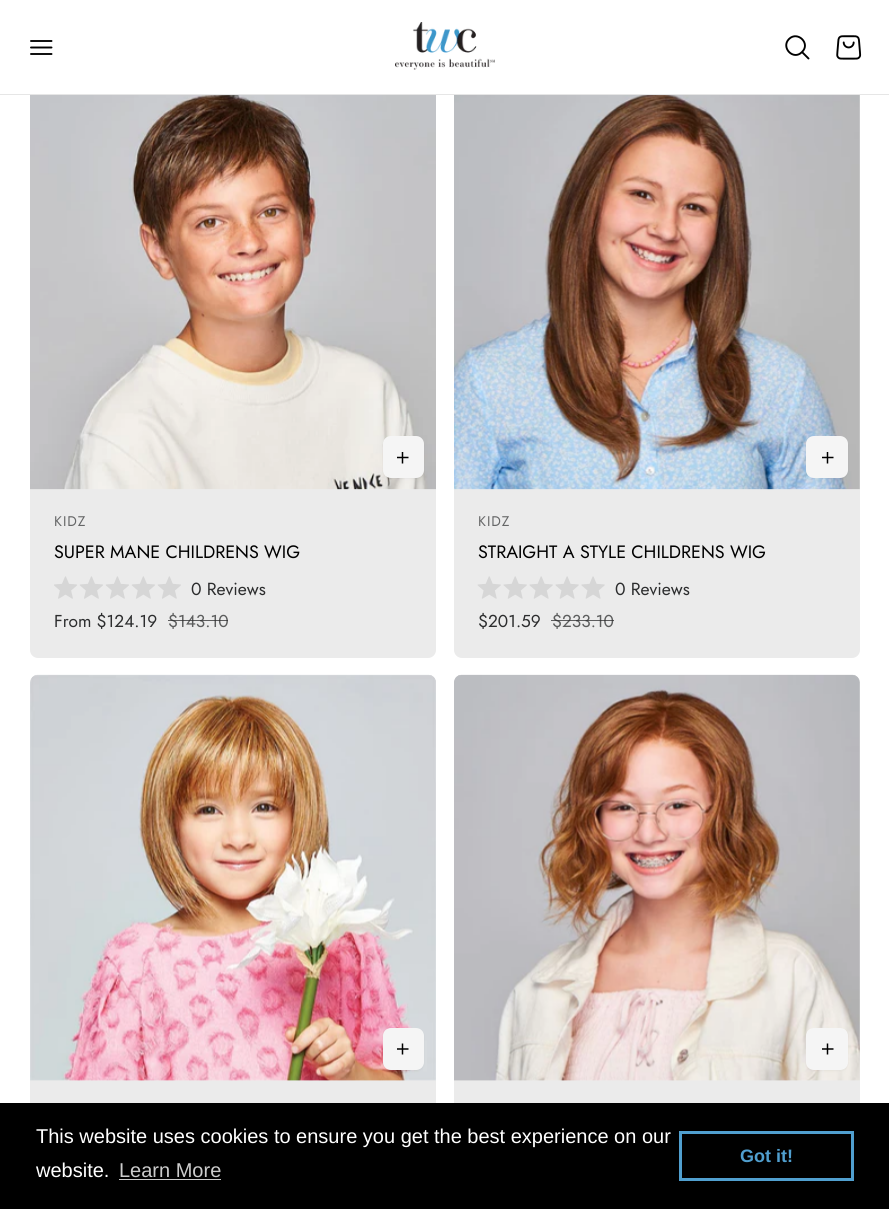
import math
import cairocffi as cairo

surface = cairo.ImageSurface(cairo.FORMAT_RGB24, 889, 1209)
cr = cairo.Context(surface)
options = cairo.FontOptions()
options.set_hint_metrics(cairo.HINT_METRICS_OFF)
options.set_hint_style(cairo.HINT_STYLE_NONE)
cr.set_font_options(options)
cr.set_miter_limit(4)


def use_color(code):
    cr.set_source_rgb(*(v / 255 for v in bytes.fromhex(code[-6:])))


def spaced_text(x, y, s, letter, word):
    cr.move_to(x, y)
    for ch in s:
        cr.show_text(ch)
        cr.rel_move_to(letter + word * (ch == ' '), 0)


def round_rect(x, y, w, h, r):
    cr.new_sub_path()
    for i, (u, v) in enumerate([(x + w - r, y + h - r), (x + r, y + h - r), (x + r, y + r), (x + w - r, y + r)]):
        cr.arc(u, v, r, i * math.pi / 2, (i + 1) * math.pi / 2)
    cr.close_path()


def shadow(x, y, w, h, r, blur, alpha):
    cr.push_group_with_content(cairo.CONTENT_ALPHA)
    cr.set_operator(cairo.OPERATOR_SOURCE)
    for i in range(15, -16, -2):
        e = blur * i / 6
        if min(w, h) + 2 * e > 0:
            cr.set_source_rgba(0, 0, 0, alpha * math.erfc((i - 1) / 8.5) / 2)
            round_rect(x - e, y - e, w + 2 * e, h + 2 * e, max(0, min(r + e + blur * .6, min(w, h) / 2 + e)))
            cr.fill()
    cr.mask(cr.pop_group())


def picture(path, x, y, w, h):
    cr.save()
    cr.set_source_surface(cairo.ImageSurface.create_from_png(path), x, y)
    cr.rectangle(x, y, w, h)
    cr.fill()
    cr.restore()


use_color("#ffffff")
cr.paint()
use_color("#ebebeb")
round_rect(30, 84, 406, 574, 8)
cr.fill()
round_rect(454, 84, 406, 574, 8)
cr.fill()
use_color("#ffffff")
cr.rectangle(30, 84, 830, 10)
cr.fill()
use_color("#e6e6e6")
cr.rectangle(0, 94, 889, 1)
cr.fill()
cr.new_path()
cr.move_to(31, 41)
cr.line_to(51.5, 41)
cr.move_to(31, 47.5)
cr.line_to(51.5, 47.5)
cr.move_to(31, 54)
cr.line_to(51.5, 54)
use_color("#000000")
cr.set_line_width(1.9)
cr.set_line_cap(cairo.LINE_CAP_ROUND)
cr.set_line_join(cairo.LINE_JOIN_ROUND)
cr.stroke()
picture("img1.png", 395, 22, 100, 48)
cr.new_path()
cr.move_to(808.5, 58.5)
cr.line_to(802, 52)
cr.move_to(802, 52)
cr.curve_to(811, 43.5, 797.5, 30.5, 789, 39)
cr.curve_to(780.5, 47.5, 793.5, 61, 802, 52)
cr.close_path()
cr.stroke()
picture("img2.png", 836, 35, 26, 25)
picture("img3.png", 30, 95, 406, 395)
use_color("#000000")
shadow(383, 438, 41, 41, 8, 1, 0.05)
use_color("#ffffff")
round_rect(383, 436, 41, 42, 8)
cr.fill()
cr.set_source_rgba(0.173, 0.176, 0.18, 0.05)
cr.new_path()
cr.move_to(391, 436)
cr.line_to(416, 436)
cr.curve_to(420, 436, 424, 440, 424, 444)
cr.line_to(424, 470)
cr.curve_to(424, 474, 420, 478, 416, 478)
cr.line_to(391, 478)
cr.curve_to(387, 478, 383, 474, 383, 470)
cr.line_to(383, 444)
cr.curve_to(383, 440, 387, 436, 391, 436)
cr.close_path()
cr.fill()
cr.new_path()
cr.move_to(402.5, 452)
cr.line_to(402.5, 463.5)
cr.move_to(408.5, 457.5)
cr.line_to(397, 457.5)
use_color("#000000")
cr.set_line_width(1.5)
cr.set_line_cap(cairo.LINE_CAP_BUTT)
cr.set_line_join(cairo.LINE_JOIN_MITER)
cr.stroke()
cr.select_font_face("Jost")
cr.set_font_size(14)
use_color("#656667")
spaced_text(54, 526, "KIDZ", 1, 0)
cr.set_font_size(17.9)
use_color("#000000")
cr.move_to(54, 558)
cr.show_text("SUPER MANE CHILDRENS WIG")
picture("img4.png", 54, 576, 127, 23)
cr.set_font_size(17.5)
use_color("#2c2d2e")
cr.move_to(191, 595)
cr.show_text("0 Reviews")
cr.set_font_size(17.25)
cr.move_to(54, 627)
cr.show_text("From $124.19")
use_color("#5c5d5d")
cr.move_to(168, 627)
cr.show_text("$143.10")
cr.set_source_rgba(0.173, 0.176, 0.18, 0.75)
cr.rectangle(168, 620, 60, 1)
cr.fill()
picture("img5.png", 454, 95, 406, 395)
use_color("#000000")
shadow(806, 438, 42, 41, 8, 1, 0.05)
use_color("#ffffff")
round_rect(806, 436, 42, 42, 8)
cr.fill()
cr.set_source_rgba(0.173, 0.176, 0.18, 0.05)
cr.new_path()
cr.move_to(814, 436)
cr.line_to(840, 436)
cr.curve_to(844, 436, 848, 440, 848, 444)
cr.line_to(848, 470)
cr.curve_to(848, 474, 844, 478, 840, 478)
cr.line_to(814, 478)
cr.curve_to(810, 478, 806, 474, 806, 470)
cr.line_to(806, 444)
cr.curve_to(806, 440, 810, 436, 814, 436)
cr.close_path()
cr.fill()
cr.new_path()
cr.move_to(827.5, 452)
cr.line_to(827.5, 463.5)
cr.move_to(833.5, 457.5)
cr.line_to(822, 457.5)
use_color("#000000")
cr.stroke()
cr.set_font_size(14)
use_color("#656667")
spaced_text(478, 526, "KIDZ", 1, 0)
cr.set_font_size(17.9)
use_color("#000000")
cr.move_to(478, 558)
cr.show_text("STRAIGHT A STYLE CHILDRENS WIG")
picture("img6.png", 477, 576, 128, 23)
cr.set_font_size(17.5)
use_color("#2c2d2e")
cr.move_to(615, 595)
cr.show_text("0 Reviews")
cr.set_font_size(17.25)
cr.move_to(478, 627)
cr.show_text("$201.59")
use_color("#5c5d5d")
cr.move_to(552, 627)
cr.show_text("$233.10")
cr.set_source_rgba(0.173, 0.176, 0.18, 0.75)
cr.rectangle(551, 620, 63, 1)
cr.fill()
use_color("#ebebeb")
round_rect(30, 675, 406, 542, 8)
cr.fill()
cr.new_path()
cr.move_to(38, 675)
cr.line_to(428, 675)
cr.curve_to(432.5, 675, 436, 678.5, 436, 683)
cr.line_to(436, 1081)
cr.line_to(30, 1081)
cr.line_to(30, 683)
cr.curve_to(30, 678.5, 33.5, 675, 38, 675)
cr.close_path()
cr.fill()
picture("img7.png", 30, 674, 406, 407)
use_color("#000000")
shadow(383, 1029, 41, 42, 8, 1, 0.05)
use_color("#ffffff")
round_rect(383, 1028, 41, 42, 8)
cr.fill()
cr.set_source_rgba(0.173, 0.176, 0.18, 0.05)
cr.new_path()
cr.move_to(391, 1028)
cr.line_to(416, 1028)
cr.curve_to(420, 1028, 424, 1032, 424, 1036)
cr.line_to(424, 1062)
cr.curve_to(424, 1066, 420, 1070, 416, 1070)
cr.line_to(391, 1070)
cr.curve_to(387, 1070, 383, 1066, 383, 1062)
cr.line_to(383, 1036)
cr.curve_to(383, 1032, 387, 1028, 391, 1028)
cr.close_path()
cr.fill()
cr.new_path()
cr.move_to(402.5, 1043.5)
cr.line_to(402.5, 1054.5)
cr.move_to(408.5, 1049)
cr.line_to(397, 1049)
use_color("#000000")
cr.stroke()
use_color("#ebebeb")
round_rect(454, 675, 406, 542, 8)
cr.fill()
cr.new_path()
cr.move_to(462, 675)
cr.line_to(852, 675)
cr.curve_to(856.5, 675, 860, 678.5, 860, 683)
cr.line_to(860, 1081)
cr.line_to(454, 1081)
cr.line_to(454, 683)
cr.curve_to(454, 678.5, 457.5, 675, 462, 675)
cr.close_path()
cr.fill()
picture("img8.png", 454, 674, 406, 407)
use_color("#000000")
shadow(806, 1029, 42, 42, 8, 1, 0.05)
use_color("#ffffff")
round_rect(806, 1028, 42, 42, 8)
cr.fill()
cr.set_source_rgba(0.173, 0.176, 0.18, 0.05)
cr.new_path()
cr.move_to(814, 1028)
cr.line_to(840, 1028)
cr.curve_to(844, 1028, 848, 1032, 848, 1036)
cr.line_to(848, 1062)
cr.curve_to(848, 1066, 844, 1070, 840, 1070)
cr.line_to(814, 1070)
cr.curve_to(810, 1070, 806, 1066, 806, 1062)
cr.line_to(806, 1036)
cr.curve_to(806, 1032, 810, 1028, 814, 1028)
cr.close_path()
cr.fill()
cr.new_path()
cr.move_to(827.5, 1043.5)
cr.line_to(827.5, 1054.5)
cr.move_to(833.5, 1049)
cr.line_to(822, 1049)
use_color("#000000")
cr.stroke()
cr.rectangle(0, 1103, 889, 106)
cr.fill()
cr.select_font_face("Liberation Sans")
cr.set_font_size(20)
use_color("#ffffff")
cr.move_to(36, 1143)
cr.show_text("This website uses cookies to ensure you get the best experience on our")
cr.move_to(36, 1177)
cr.show_text("website.")
use_color("#cccccc")
cr.move_to(119, 1177)
cr.show_text("Learn More")
cr.rectangle(119, 1179, 102, 1)
cr.fill()
cr.rectangle(680.5, 1132.5, 172, 47)
use_color("#509fcf")
cr.set_line_width(3)
cr.stroke()
cr.select_font_face("Liberation Sans", cairo.FONT_SLANT_NORMAL, cairo.FONT_WEIGHT_BOLD)
cr.set_font_size(18)
cr.move_to(740, 1162)
cr.show_text("Got it!")
surface.write_to_png("result.png")
